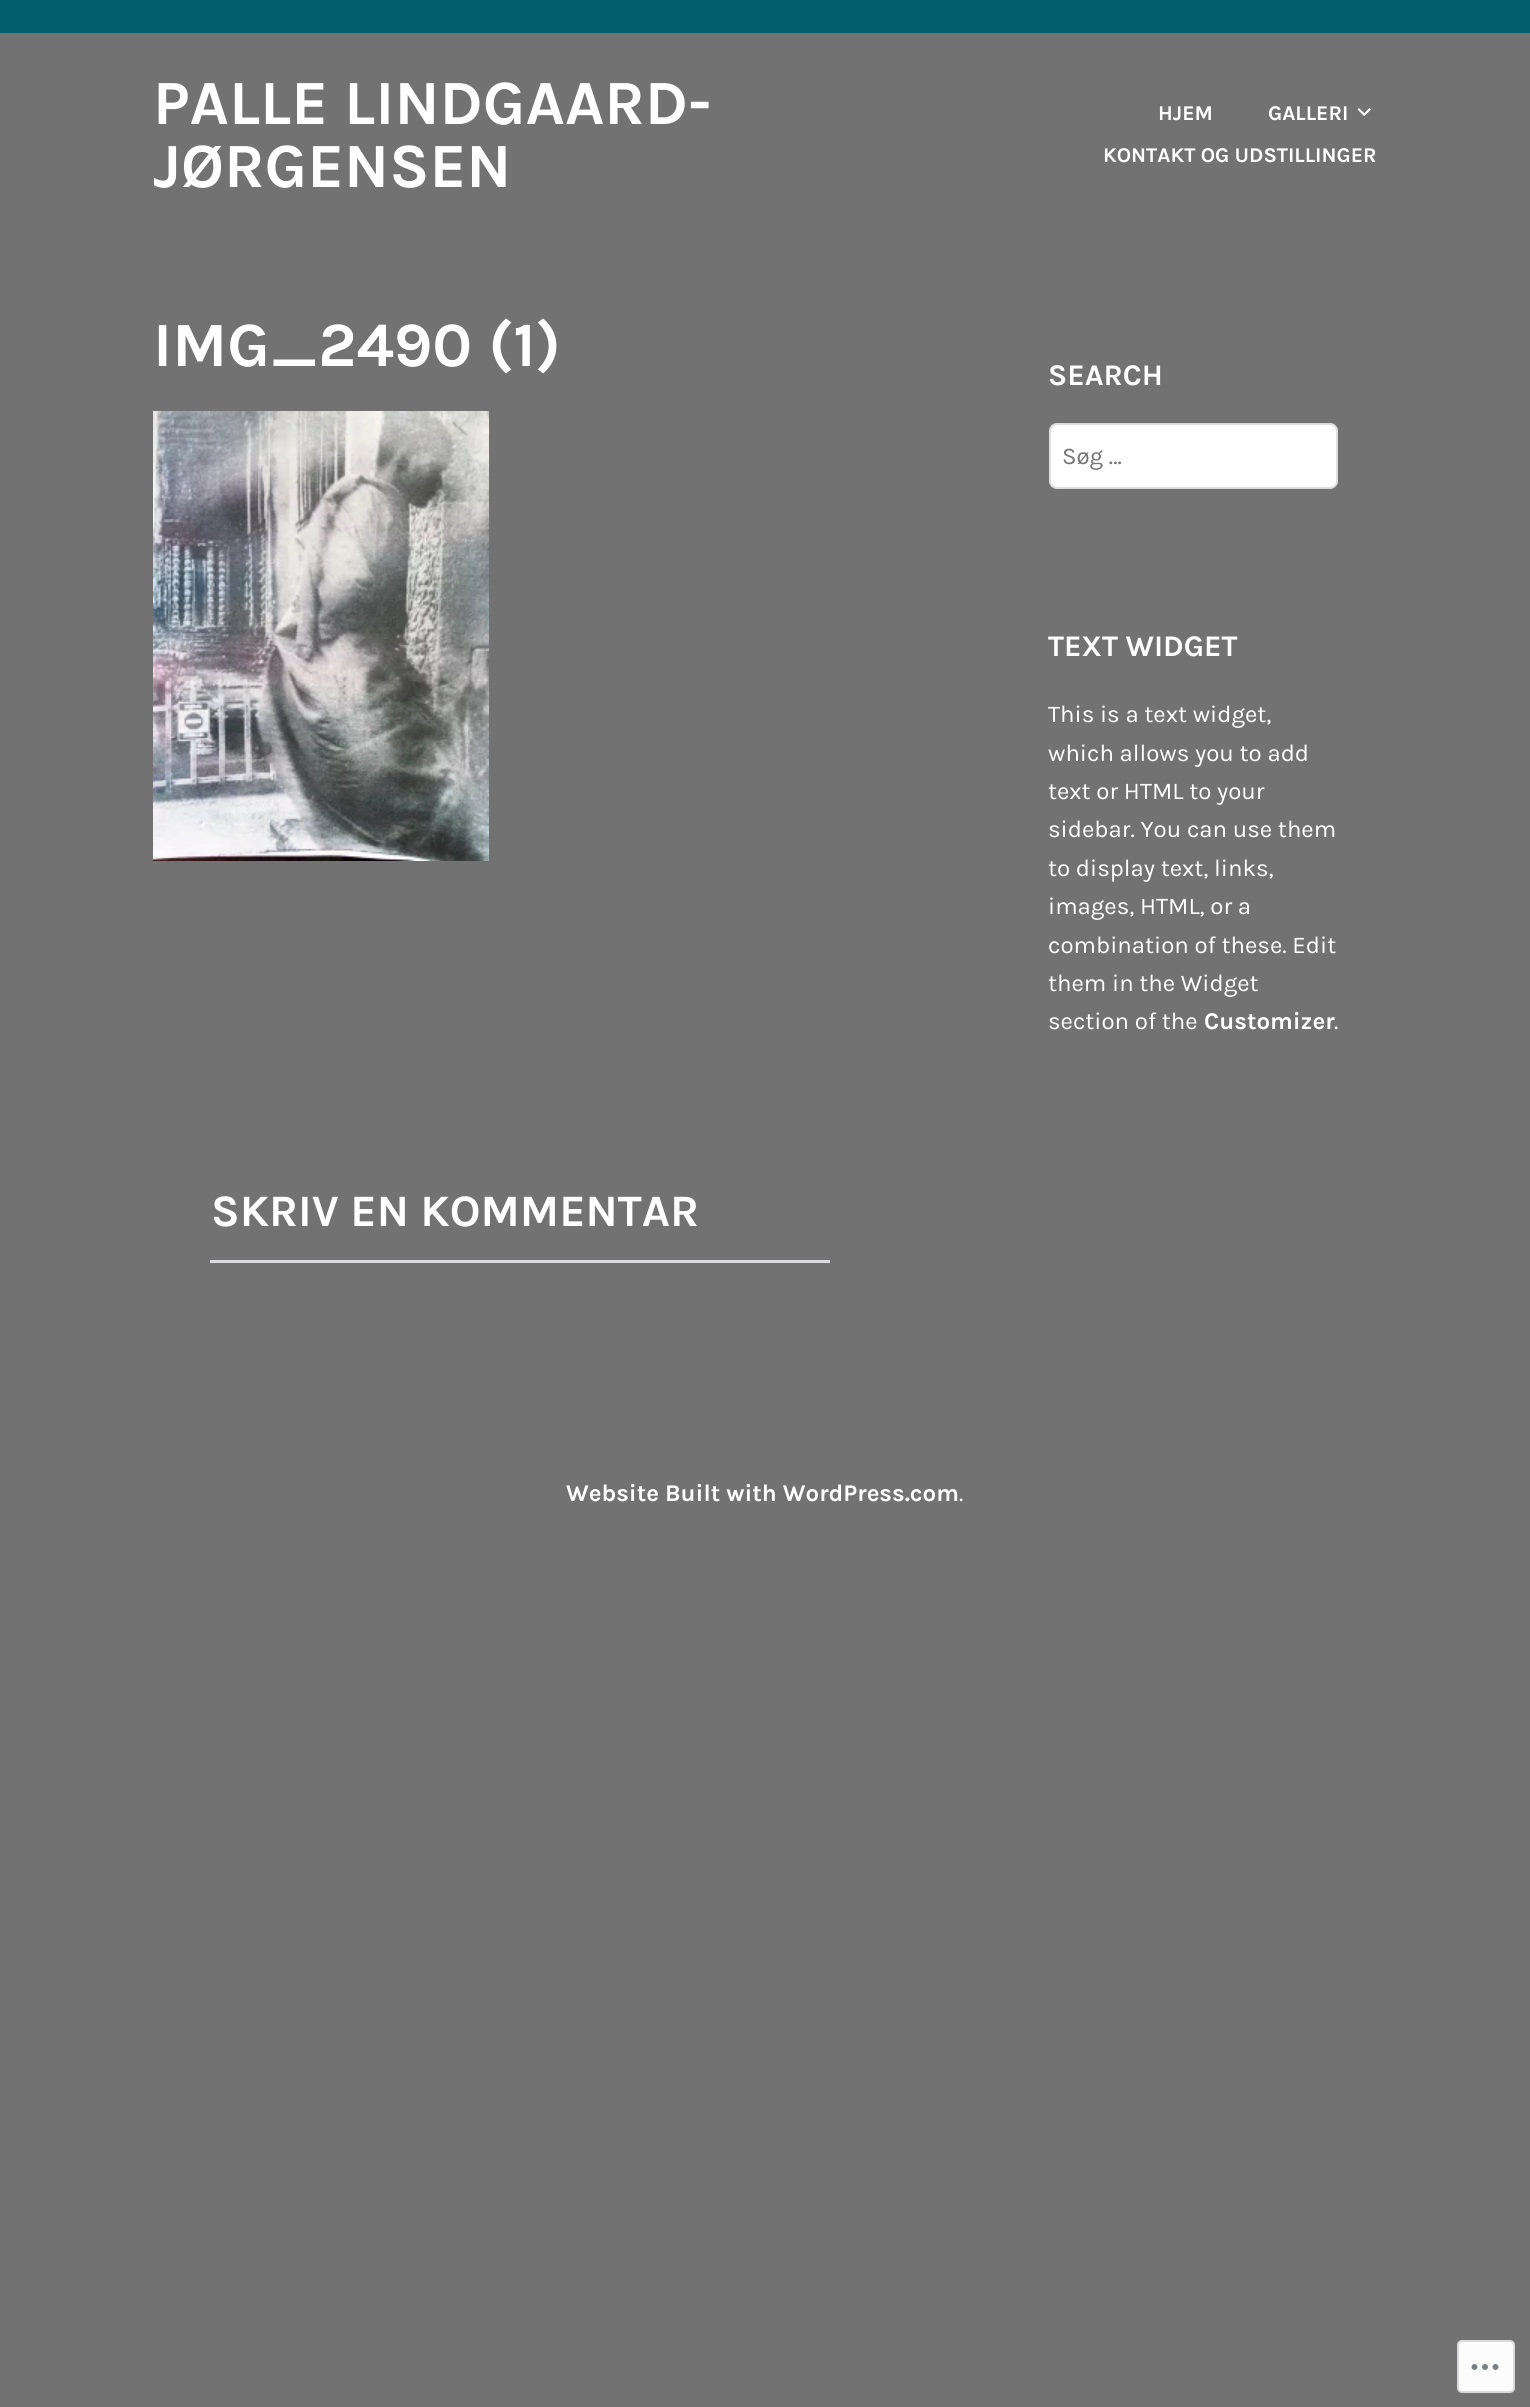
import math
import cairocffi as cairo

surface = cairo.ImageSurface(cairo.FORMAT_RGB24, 1530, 2407)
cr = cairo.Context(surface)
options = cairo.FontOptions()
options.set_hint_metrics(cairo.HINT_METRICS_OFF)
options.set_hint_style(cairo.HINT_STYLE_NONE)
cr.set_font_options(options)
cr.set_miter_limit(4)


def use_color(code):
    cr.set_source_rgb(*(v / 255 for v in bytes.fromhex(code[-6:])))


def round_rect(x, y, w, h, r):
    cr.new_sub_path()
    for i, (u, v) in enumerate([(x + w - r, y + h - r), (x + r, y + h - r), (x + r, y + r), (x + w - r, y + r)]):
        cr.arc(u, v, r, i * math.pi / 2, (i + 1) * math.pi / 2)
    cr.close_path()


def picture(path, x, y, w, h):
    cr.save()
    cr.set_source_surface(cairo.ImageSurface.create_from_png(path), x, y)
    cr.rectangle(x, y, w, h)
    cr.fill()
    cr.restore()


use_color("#727272")
cr.paint()
use_color("#005f6b")
cr.rectangle(0, 0, 1530, 33)
cr.fill()
cr.select_font_face("Karla", cairo.FONT_SLANT_NORMAL, cairo.FONT_WEIGHT_BOLD)
cr.set_font_size(63)
use_color("#ffffff")
cr.move_to(153, 124)
cr.show_text("PALLE LINDGAARD-")
cr.move_to(153, 187)
cr.show_text("JØRGENSEN")
cr.set_font_size(21)
cr.move_to(1158, 120)
cr.show_text("HJEM")
cr.move_to(1268, 120)
cr.show_text("GALLERI")
picture("img1.png", 1357, 108, 14, 9)
cr.move_to(1103, 162)
cr.show_text("KONTAKT OG UDSTILLINGER")
cr.set_font_size(63)
cr.move_to(153, 366)
cr.show_text("IMG_2490 (1)")
picture("img2.png", 153, 411, 336, 450)
cr.set_font_size(45)
cr.move_to(211, 1226)
cr.show_text("SKRIV EN KOMMENTAR")
use_color("#dcdcde")
cr.rectangle(210, 1260, 620, 3)
cr.fill()
cr.set_font_size(30)
use_color("#ffffff")
cr.move_to(1048, 385)
cr.show_text("SEARCH")
round_rect(1050, 424, 287, 64, 7)
cr.fill_preserve()
use_color("#dddddd")
cr.stroke()
cr.select_font_face("Karla")
cr.set_font_size(24)
use_color("#757575")
cr.move_to(1062, 464)
cr.show_text("Søg …")
cr.select_font_face("Karla", cairo.FONT_SLANT_NORMAL, cairo.FONT_WEIGHT_BOLD)
cr.set_font_size(30)
use_color("#ffffff")
cr.move_to(1048, 656)
cr.show_text("TEXT WIDGET")
cr.select_font_face("Karla")
cr.set_font_size(24)
cr.move_to(1048, 722)
cr.show_text("This is a text widget,")
cr.move_to(1048, 761)
cr.show_text("which allows you to add")
cr.move_to(1048, 799)
cr.show_text("text or HTML to your")
cr.move_to(1048, 837)
cr.show_text("sidebar. You can use them")
cr.move_to(1048, 876)
cr.show_text("to display text, links,")
cr.move_to(1048, 914)
cr.show_text("images, HTML, or a")
cr.move_to(1048, 953)
cr.show_text("combination of these. Edit")
cr.move_to(1048, 991)
cr.show_text("them in the Widget")
cr.move_to(1048, 1029)
cr.show_text("section of the")
cr.select_font_face("Karla", cairo.FONT_SLANT_NORMAL, cairo.FONT_WEIGHT_BOLD)
cr.move_to(1204, 1029)
cr.show_text("Customizer")
cr.select_font_face("Karla")
cr.move_to(1334, 1029)
cr.show_text(".")
cr.select_font_face("Karla", cairo.FONT_SLANT_NORMAL, cairo.FONT_WEIGHT_BOLD)
cr.move_to(566, 1501)
cr.show_text("Website Built with WordPress.com")
cr.select_font_face("Karla")
cr.move_to(959, 1501)
cr.show_text(".")
use_color("#fcfcfc")
round_rect(1458, 2341, 56, 51, 4)
cr.fill_preserve()
use_color("#dadadc")
cr.stroke()
picture("img3.png", 1471, 2364, 28, 6)
surface.write_to_png("result.png")
